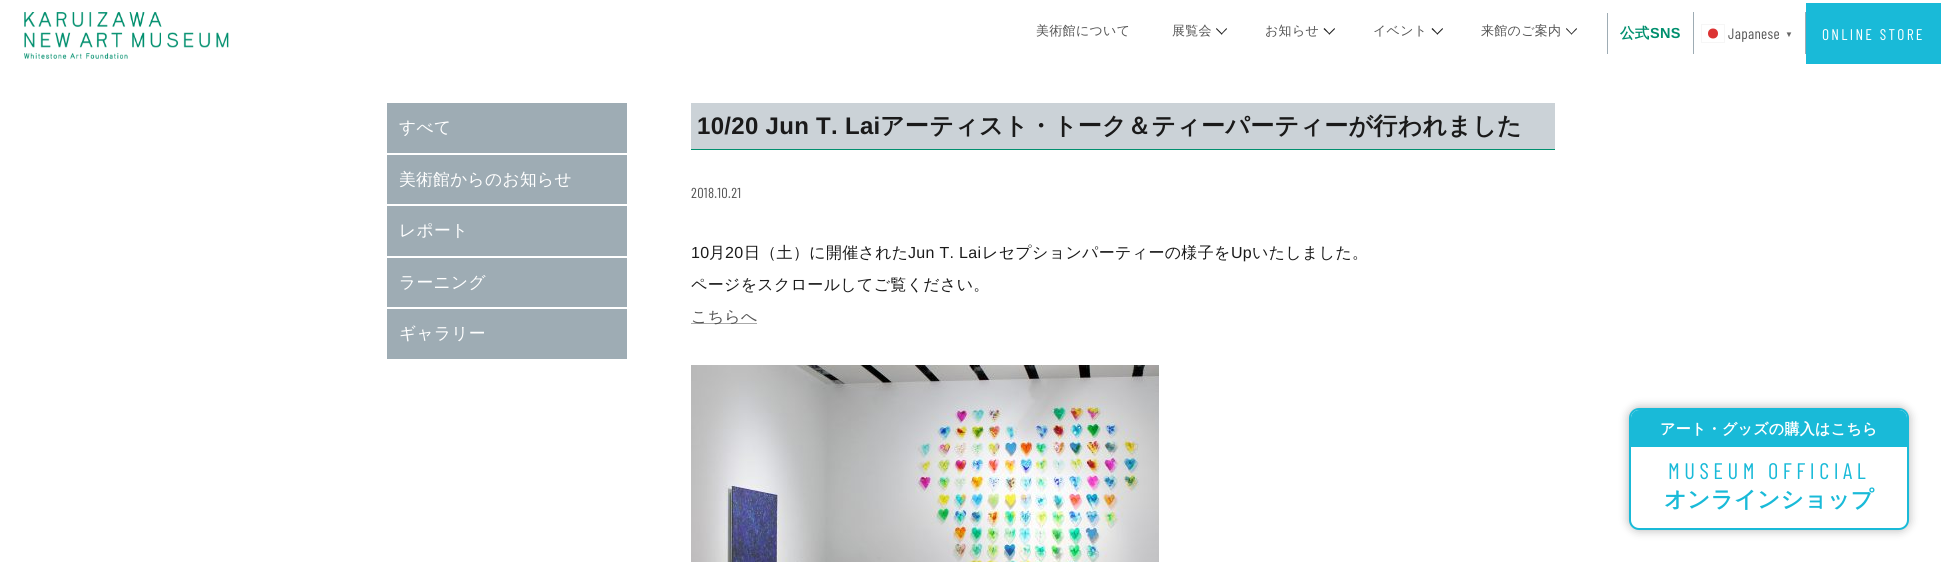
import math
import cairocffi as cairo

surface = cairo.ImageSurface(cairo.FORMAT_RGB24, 1941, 562)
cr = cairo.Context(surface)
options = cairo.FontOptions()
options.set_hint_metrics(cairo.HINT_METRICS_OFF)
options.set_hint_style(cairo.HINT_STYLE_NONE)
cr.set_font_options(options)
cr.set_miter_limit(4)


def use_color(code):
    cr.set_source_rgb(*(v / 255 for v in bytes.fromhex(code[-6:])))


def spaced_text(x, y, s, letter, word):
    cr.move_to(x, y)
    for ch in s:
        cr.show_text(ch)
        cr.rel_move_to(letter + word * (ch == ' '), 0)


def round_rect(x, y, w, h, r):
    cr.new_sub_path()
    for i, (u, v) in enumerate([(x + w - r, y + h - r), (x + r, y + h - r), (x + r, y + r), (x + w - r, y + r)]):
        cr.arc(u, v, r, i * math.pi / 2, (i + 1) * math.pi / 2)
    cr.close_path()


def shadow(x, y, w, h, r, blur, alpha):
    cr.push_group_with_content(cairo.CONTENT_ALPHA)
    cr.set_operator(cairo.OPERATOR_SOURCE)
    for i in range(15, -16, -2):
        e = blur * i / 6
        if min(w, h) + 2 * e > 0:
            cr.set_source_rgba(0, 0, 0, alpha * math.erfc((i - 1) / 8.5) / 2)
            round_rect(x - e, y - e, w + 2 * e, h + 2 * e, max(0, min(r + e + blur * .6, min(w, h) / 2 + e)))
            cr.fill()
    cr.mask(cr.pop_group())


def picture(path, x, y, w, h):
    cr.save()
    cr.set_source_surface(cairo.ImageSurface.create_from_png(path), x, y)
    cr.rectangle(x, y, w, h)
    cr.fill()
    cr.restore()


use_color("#ffffff")
cr.paint()
picture("img1.png", 24, 12, 205, 47)
cr.select_font_face("WenQuanYi Zen Hei Medium")
cr.set_font_size(13)
use_color("#555555")
spaced_text(1036, 35, "美術館について", 0.3, 0)
spaced_text(1172, 35, "展覧会", 0.3, 0)
use_color("#1a1a1a")
cr.new_path()
cr.move_to(1227, 29)
cr.line_to(1221.5, 34.5)
cr.line_to(1221, 34)
cr.line_to(1226.5, 28)
cr.close_path()
cr.fill()
cr.new_path()
cr.move_to(1222.5, 34)
cr.line_to(1221.5, 34.5)
cr.line_to(1216, 29)
cr.line_to(1216.5, 28)
cr.close_path()
cr.fill()
use_color("#555555")
spaced_text(1265, 35, "お知らせ", 0.3, 0)
use_color("#1a1a1a")
cr.new_path()
cr.move_to(1335, 29)
cr.line_to(1329.5, 34.5)
cr.line_to(1328.5, 34)
cr.line_to(1334.5, 28)
cr.close_path()
cr.fill()
cr.new_path()
cr.move_to(1330, 34)
cr.line_to(1329.5, 34.5)
cr.line_to(1323.5, 29)
cr.line_to(1324.5, 28)
cr.close_path()
cr.fill()
use_color("#555555")
spaced_text(1373, 35, "イベント", 0.3, 0)
use_color("#1a1a1a")
cr.new_path()
cr.move_to(1443, 29)
cr.line_to(1437.5, 34.5)
cr.line_to(1436.5, 34)
cr.line_to(1442.5, 28)
cr.close_path()
cr.fill()
cr.new_path()
cr.move_to(1438, 34)
cr.line_to(1437.5, 34.5)
cr.line_to(1431.5, 29)
cr.line_to(1432.5, 28)
cr.close_path()
cr.fill()
use_color("#555555")
spaced_text(1481, 35, "来館のご案内", 0.3, 0)
use_color("#1a1a1a")
cr.new_path()
cr.move_to(1577, 29)
cr.line_to(1571.5, 34.5)
cr.line_to(1571, 34)
cr.line_to(1576.5, 28)
cr.close_path()
cr.fill()
cr.new_path()
cr.move_to(1572, 34)
cr.line_to(1571.5, 34.5)
cr.line_to(1566, 29)
cr.line_to(1566.5, 28)
cr.close_path()
cr.fill()
use_color("#9eacb4")
cr.rectangle(1607, 13, 1, 41)
cr.fill()
cr.select_font_face("WenQuanYi Zen Hei", cairo.FONT_SLANT_NORMAL, cairo.FONT_WEIGHT_BOLD)
cr.set_font_size(14.5)
use_color("#008f6e")
spaced_text(1620, 38, "公式", 0.3, 0)
cr.select_font_face("Liberation Sans", cairo.FONT_SLANT_NORMAL, cairo.FONT_WEIGHT_BOLD)
spaced_text(1650, 38, "SNS", 0.3, 0)
use_color("#9eacb4")
cr.rectangle(1693, 12, 1, 42)
cr.fill()
cr.select_font_face("Barlow Condensed")
cr.set_font_size(15)
use_color("#555555")
spaced_text(1728, 39, "Japanese", 0.3, 0)
cr.rectangle(1701.5, 24.5, 23, 18)
use_color("#f6f6f6")
cr.set_line_width(1)
cr.stroke()
use_color("#dc3333")
cr.arc(1713, 33.5, 5, 0, 2 * math.pi)
cr.fill()
cr.select_font_face("Liberation Sans", cairo.FONT_SLANT_NORMAL, cairo.FONT_WEIGHT_BOLD)
cr.set_font_size(8)
use_color("#666666")
spaced_text(1785, 37, "▼", 0.3, 0)
use_color("#9eacb4")
cr.rectangle(1805, 12, 1, 42)
cr.fill()
use_color("#19bad8")
cr.rectangle(1806, 3, 135, 61)
cr.fill()
cr.select_font_face("Barlow Condensed")
cr.set_font_size(15.5)
use_color("#ffffff")
spaced_text(1822, 40, "ONLINE STORE", 2.3, 0)
use_color("#9eacb4")
cr.rectangle(387, 103, 240, 50)
cr.fill()
cr.select_font_face("WenQuanYi Zen Hei Medium")
cr.set_font_size(16.75)
use_color("#ffffff")
spaced_text(399, 133, "すべて", 0.3, 0)
use_color("#9eacb4")
cr.rectangle(387, 155, 240, 49)
cr.fill()
use_color("#ffffff")
spaced_text(399, 185, "美術館からのお知らせ", 0.3, 0)
use_color("#9eacb4")
cr.rectangle(387, 206, 240, 50)
cr.fill()
use_color("#ffffff")
spaced_text(399, 236, "レポート", 0.3, 0)
use_color("#9eacb4")
cr.rectangle(387, 258, 240, 49)
cr.fill()
use_color("#ffffff")
spaced_text(399, 288, "ラーニング", 0.3, 0)
use_color("#9eacb4")
cr.rectangle(387, 309, 240, 50)
cr.fill()
use_color("#ffffff")
spaced_text(399, 339, "ギャラリー", 0.3, 0)
use_color("#cbd2d7")
cr.rectangle(691, 103, 864, 46)
cr.fill()
use_color("#008f6e")
cr.rectangle(691, 149, 864, 1)
cr.fill()
cr.select_font_face("Liberation Sans", cairo.FONT_SLANT_NORMAL, cairo.FONT_WEIGHT_BOLD)
cr.set_font_size(24)
use_color("#1a1a1a")
spaced_text(697, 134, "10/20 Jun T. Lai", 0.3, 0)
cr.select_font_face("WenQuanYi Zen Hei", cairo.FONT_SLANT_NORMAL, cairo.FONT_WEIGHT_BOLD)
spaced_text(880, 134, "アーティスト・トーク＆ティーパーティーが行われました", 0.3, 0)
cr.select_font_face("Barlow Condensed")
cr.set_font_size(14.5)
use_color("#555555")
spaced_text(691, 198, "2018.10.21", 0.3, 0)
cr.select_font_face("Liberation Sans")
cr.set_font_size(16)
use_color("#1a1a1a")
spaced_text(691, 258, "10", 0.3, 0)
cr.select_font_face("WenQuanYi Zen Hei Medium")
spaced_text(709, 258, "月", 0.3, 0)
cr.select_font_face("Liberation Sans")
spaced_text(725, 258, "20", 0.3, 0)
cr.select_font_face("WenQuanYi Zen Hei Medium")
spaced_text(744, 258, "日（土）に開催された", 0.3, 0)
cr.select_font_face("Liberation Sans")
spaced_text(908, 258, "Jun T. Lai", 0.3, 0)
cr.select_font_face("WenQuanYi Zen Hei Medium")
spaced_text(982, 258, "レセプションパーティーの様子を", 0.3, 0)
cr.select_font_face("Liberation Sans")
spaced_text(1231, 258, "Up", 0.3, 0)
cr.select_font_face("WenQuanYi Zen Hei Medium")
spaced_text(1252, 258, "いたしました。", 0.3, 0)
spaced_text(691, 290, "ページをスクロールしてご覧ください。", 0.3, 0)
use_color("#aaaaaa")
cr.rectangle(691, 323, 66, 1)
cr.fill()
use_color("#555555")
spaced_text(691, 322, "こちらへ", 0.3, 0)
picture("img2.png", 691, 365, 468, 197)
use_color("#000000")
shadow(1629, 408, 280, 122, 10, 5, 0.3)
use_color("#ffffff")
round_rect(1630, 409, 278, 120, 9)
cr.fill_preserve()
use_color("#19bad8")
cr.set_line_width(2)
cr.stroke()
cr.new_path()
cr.move_to(1639, 410)
cr.line_to(1899, 410)
cr.curve_to(1903.5, 410, 1907, 413.5, 1907, 418)
cr.line_to(1907, 447)
cr.line_to(1631, 447)
cr.line_to(1631, 418)
cr.curve_to(1631, 413.5, 1634.5, 410, 1639, 410)
cr.close_path()
cr.fill()
cr.select_font_face("WenQuanYi Zen Hei", cairo.FONT_SLANT_NORMAL, cairo.FONT_WEIGHT_BOLD)
cr.set_font_size(15)
use_color("#ffffff")
spaced_text(1660, 434, "アート・グッズの購入はこちら", 0.3, 0)
cr.select_font_face("Barlow Condensed")
cr.set_font_size(22.5)
use_color("#19bad8")
spaced_text(1668, 479, "MUSEUM OFFICIAL", 4.5, 0)
cr.select_font_face("WenQuanYi Zen Hei", cairo.FONT_SLANT_NORMAL, cairo.FONT_WEIGHT_BOLD)
spaced_text(1664, 507, "オンラインショップ", 0.3, 0)
surface.write_to_png("result.png")
